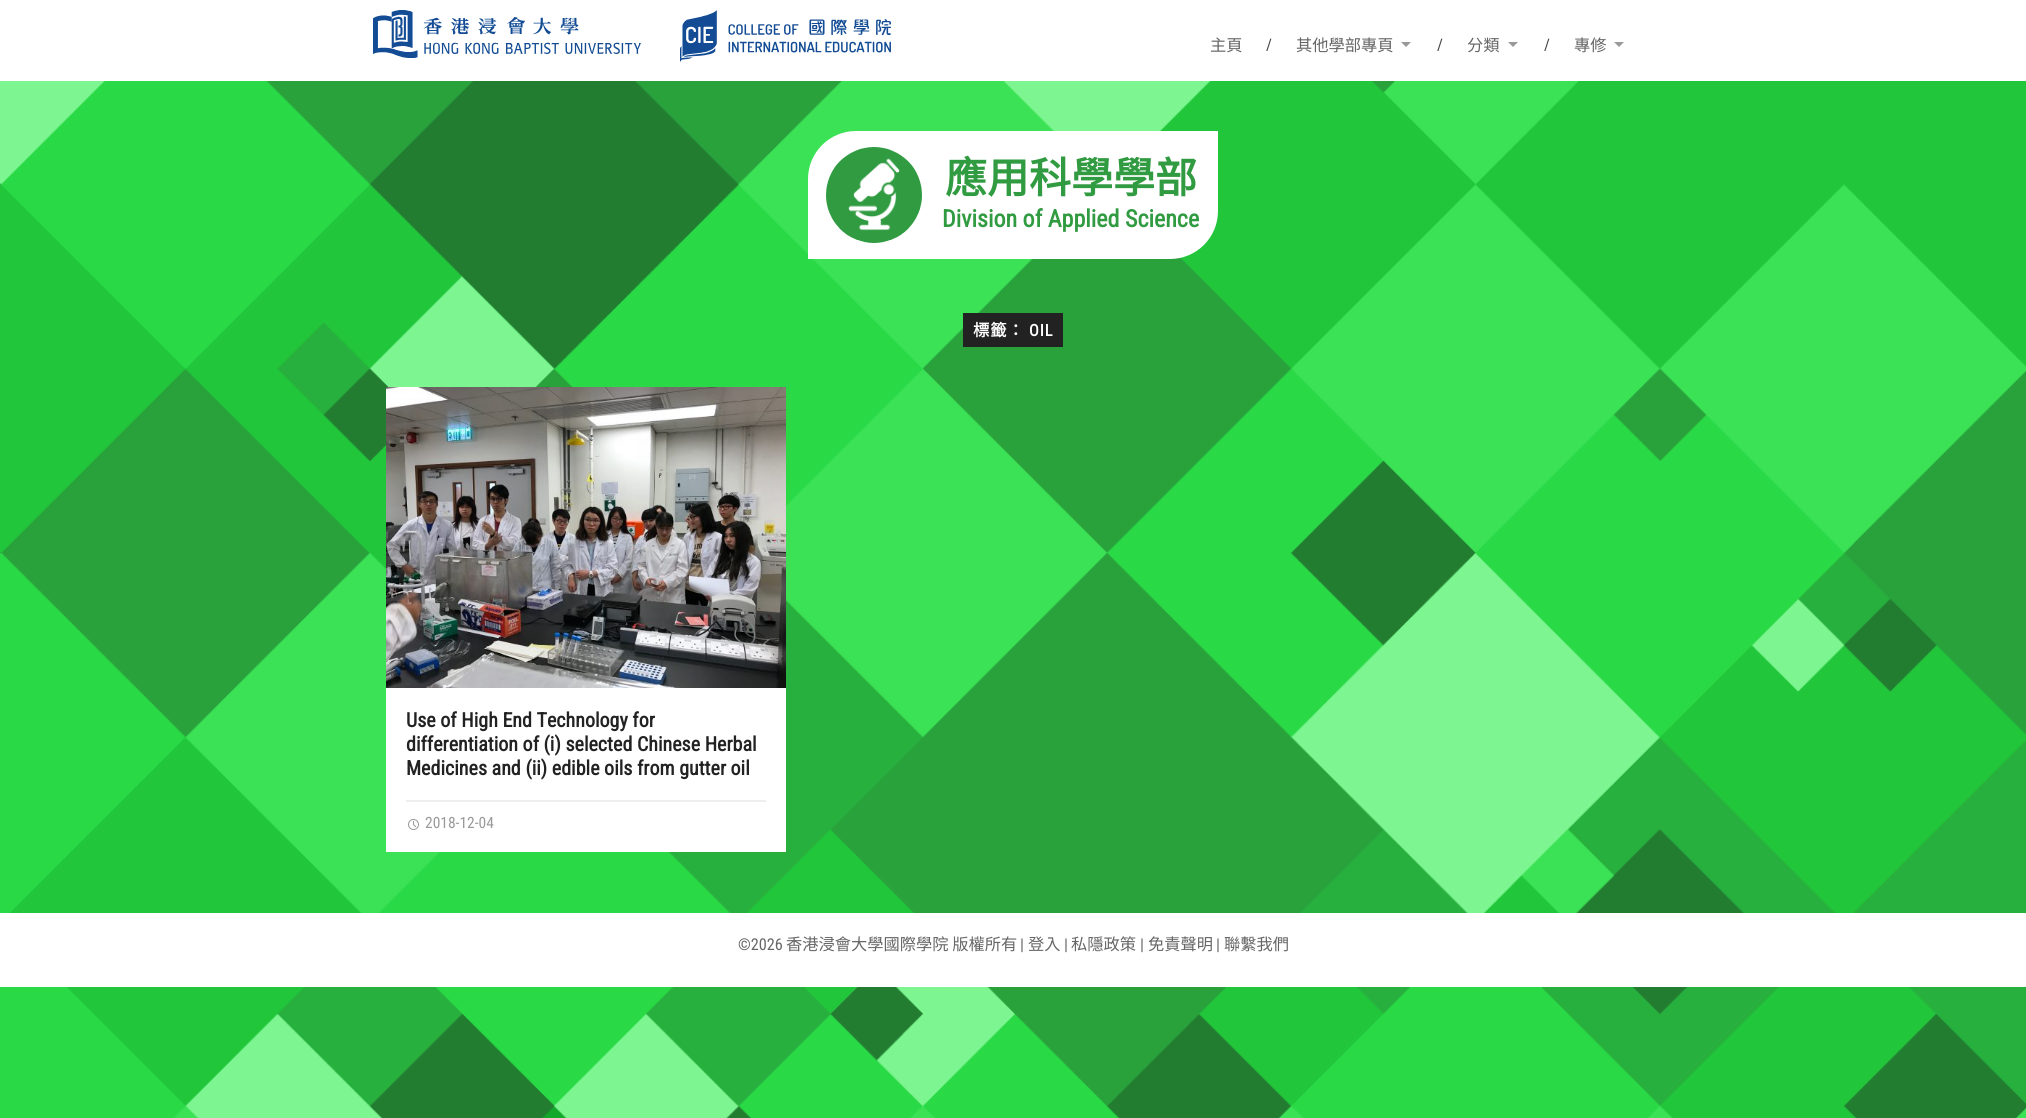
import math
import cairocffi as cairo

surface = cairo.ImageSurface(cairo.FORMAT_RGB24, 2026, 1118)
cr = cairo.Context(surface)
options = cairo.FontOptions()
options.set_hint_metrics(cairo.HINT_METRICS_OFF)
options.set_hint_style(cairo.HINT_STYLE_NONE)
cr.set_font_options(options)
cr.set_miter_limit(4)


def use_color(code):
    cr.set_source_rgb(*(v / 255 for v in bytes.fromhex(code[-6:])))


def spaced_text(x, y, s, letter, word):
    cr.move_to(x, y)
    for ch in s:
        cr.show_text(ch)
        cr.rel_move_to(letter + word * (ch == ' '), 0)


def picture(path, x, y, w, h):
    cr.save()
    cr.set_source_surface(cairo.ImageSurface.create_from_png(path), x, y)
    cr.rectangle(x, y, w, h)
    cr.fill()
    cr.restore()


use_color("#ffffff")
cr.paint()
picture("img1.png", 0, 81, 2026, 1037)
picture("img2.png", 373, 10, 268, 48)
picture("img3.png", 680, 10, 211, 52)
cr.select_font_face("Noto Sans CJK HK")
cr.set_font_size(16.25)
use_color("#666666")
cr.move_to(1210, 51)
cr.show_text("主頁")
cr.select_font_face("Roboto Condensed")
cr.set_font_size(16)
use_color("#444444")
cr.move_to(1266, 50)
cr.show_text("/")
cr.select_font_face("Noto Sans CJK HK")
cr.set_font_size(16.25)
use_color("#666666")
cr.move_to(1296, 51)
cr.show_text("其他學部專頁")
use_color("#999999")
cr.new_path()
cr.move_to(1401, 42)
cr.line_to(1411, 42)
cr.line_to(1406, 47)
cr.close_path()
cr.fill()
cr.select_font_face("Roboto Condensed")
cr.set_font_size(16)
use_color("#444444")
cr.move_to(1437, 50)
cr.show_text("/")
cr.select_font_face("Noto Sans CJK HK")
cr.set_font_size(16.25)
use_color("#666666")
cr.move_to(1467, 51)
cr.show_text("分類")
use_color("#999999")
cr.new_path()
cr.move_to(1508, 42)
cr.line_to(1518, 42)
cr.line_to(1513, 47)
cr.close_path()
cr.fill()
cr.select_font_face("Roboto Condensed")
cr.set_font_size(16)
use_color("#444444")
cr.move_to(1544, 50)
cr.show_text("/")
cr.select_font_face("Noto Sans CJK HK")
cr.set_font_size(16.25)
use_color("#666666")
cr.move_to(1574, 51)
cr.show_text("專修")
use_color("#999999")
cr.new_path()
cr.move_to(1614, 42)
cr.line_to(1624, 42)
cr.line_to(1619, 47)
cr.close_path()
cr.fill()
use_color("#ffffff")
cr.new_path()
cr.move_to(856, 131)
cr.line_to(1218, 131)
cr.line_to(1218, 211)
cr.curve_to(1218, 237.5, 1196.5, 259, 1170, 259)
cr.line_to(808, 259)
cr.line_to(808, 179)
cr.curve_to(808, 152.5, 829.5, 131, 856, 131)
cr.close_path()
cr.fill()
picture("img4.png", 826, 147, 96, 96)
cr.select_font_face("Noto Sans CJK HK", cairo.FONT_SLANT_NORMAL, cairo.FONT_WEIGHT_BOLD)
cr.set_font_size(42)
use_color("#319b42")
cr.move_to(945, 193)
cr.show_text("應用科學學部")
cr.select_font_face("Roboto Condensed", cairo.FONT_SLANT_NORMAL, cairo.FONT_WEIGHT_BOLD)
cr.set_font_size(24)
cr.move_to(942, 227)
cr.show_text("Division of Applied Science")
use_color("#222222")
cr.rectangle(963, 313, 100, 34)
cr.fill()
cr.select_font_face("Noto Sans CJK HK", cairo.FONT_SLANT_NORMAL, cairo.FONT_WEIGHT_BOLD)
cr.set_font_size(16.25)
use_color("#ffffff")
spaced_text(973, 336, "標籤：", 1, 0)
cr.select_font_face("Roboto Condensed", cairo.FONT_SLANT_NORMAL, cairo.FONT_WEIGHT_BOLD)
spaced_text(1029, 336, "OIL", 1, 0)
cr.rectangle(386, 688, 400, 164)
cr.fill()
picture("img5.png", 386, 387, 400, 301)
cr.set_font_size(20)
use_color("#222222")
cr.move_to(406, 727)
cr.show_text("Use of High End Technology for")
cr.move_to(406, 751)
cr.show_text("differentiation of (i) selected Chinese Herbal")
cr.move_to(406, 775)
cr.show_text("Medicines and (ii) edible oils from gutter oil")
use_color("#eeeeee")
cr.rectangle(406, 800, 360, 2)
cr.fill()
picture("img6.png", 408, 819, 11, 11)
cr.select_font_face("Roboto Condensed")
cr.set_font_size(15.5)
use_color("#999999")
cr.move_to(425, 828)
cr.show_text("2018-12-04")
use_color("#ffffff")
cr.rectangle(0, 913, 2026, 74)
cr.fill()
cr.set_font_size(16.25)
use_color("#666666")
cr.move_to(738, 950)
cr.show_text("©2026")
cr.select_font_face("Noto Sans CJK HK")
cr.move_to(786, 950)
cr.show_text("香港浸會大學國際學院 版權所有")
cr.select_font_face("Roboto Condensed")
cr.move_to(1020, 950)
cr.show_text("|")
cr.select_font_face("Noto Sans CJK HK")
cr.move_to(1028, 950)
cr.show_text("登入")
cr.select_font_face("Roboto Condensed")
cr.move_to(1064, 950)
cr.show_text("|")
cr.select_font_face("Noto Sans CJK HK")
cr.move_to(1071, 950)
cr.show_text("私隱政策")
cr.select_font_face("Roboto Condensed")
cr.move_to(1140, 950)
cr.show_text("|")
cr.select_font_face("Noto Sans CJK HK")
cr.move_to(1148, 950)
cr.show_text("免責聲明")
cr.select_font_face("Roboto Condensed")
cr.move_to(1216, 950)
cr.show_text("|")
cr.select_font_face("Noto Sans CJK HK")
cr.move_to(1224, 950)
cr.show_text("聯繫我們")
surface.write_to_png("result.png")
